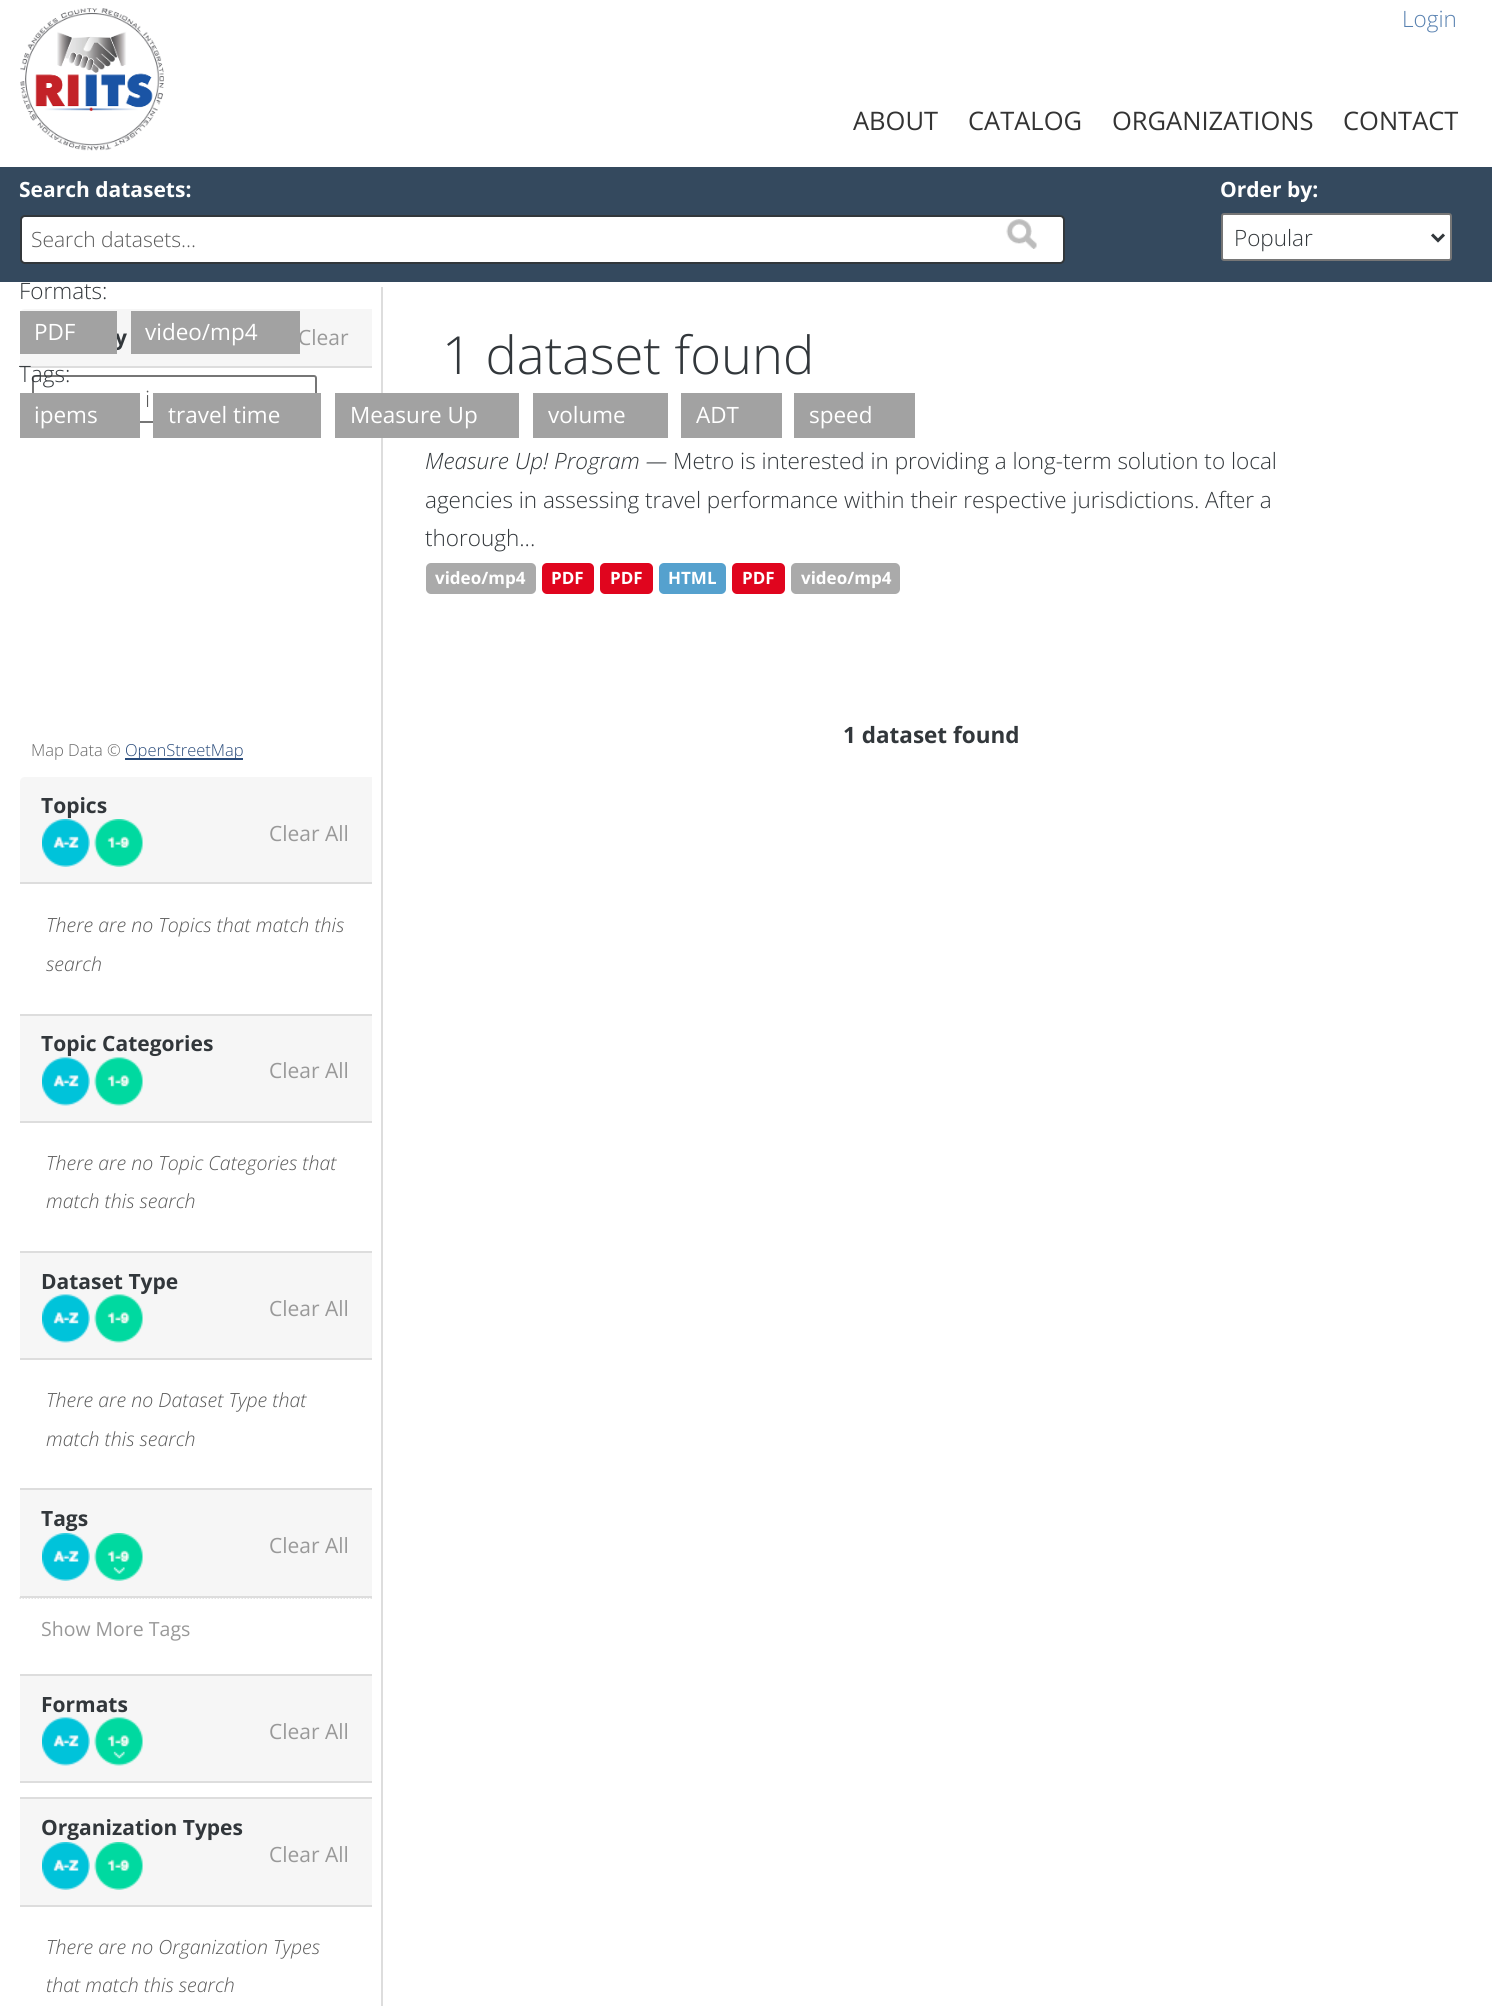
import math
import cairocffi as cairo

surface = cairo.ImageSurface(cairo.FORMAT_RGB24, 1492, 2006)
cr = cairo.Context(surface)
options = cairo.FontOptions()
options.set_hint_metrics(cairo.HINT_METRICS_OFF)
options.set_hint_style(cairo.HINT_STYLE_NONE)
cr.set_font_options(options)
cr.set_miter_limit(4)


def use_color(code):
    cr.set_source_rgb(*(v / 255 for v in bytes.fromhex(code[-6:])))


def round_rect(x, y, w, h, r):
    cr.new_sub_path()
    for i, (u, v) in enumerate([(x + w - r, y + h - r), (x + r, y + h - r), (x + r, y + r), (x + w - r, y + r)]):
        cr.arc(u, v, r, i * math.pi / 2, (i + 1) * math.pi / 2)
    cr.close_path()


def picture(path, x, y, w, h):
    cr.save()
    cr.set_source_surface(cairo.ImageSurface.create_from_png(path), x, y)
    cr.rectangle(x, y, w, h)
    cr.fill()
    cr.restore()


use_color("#ffffff")
cr.paint()
cr.select_font_face("Open Sans Light")
cr.set_font_size(22.5)
use_color("#5881b0")
cr.move_to(1402, 27)
cr.show_text("Login")
picture("img1.png", 20, 8, 144, 143)
cr.select_font_face("Open Sans")
cr.set_font_size(25.5)
use_color("#333333")
cr.move_to(853, 130)
cr.show_text("ABOUT")
cr.move_to(968, 130)
cr.show_text("CATALOG")
cr.move_to(1112, 130)
cr.show_text("ORGANIZATIONS")
cr.move_to(1343, 130)
cr.show_text("CONTACT")
use_color("#34495e")
cr.rectangle(0, 167, 1492, 115)
cr.fill()
cr.select_font_face("Open Sans", cairo.FONT_SLANT_NORMAL, cairo.FONT_WEIGHT_BOLD)
cr.set_font_size(21)
use_color("#ffffff")
cr.move_to(19, 197)
cr.show_text("Search datasets:")
round_rect(21, 216, 1043, 47, 4)
cr.fill_preserve()
use_color("#32373b")
cr.stroke()
cr.select_font_face("Open Sans Light")
use_color("#595959")
cr.move_to(31, 247)
cr.show_text("Search datasets...")
picture("img2.png", 1006, 219, 31, 30)
cr.select_font_face("Open Sans", cairo.FONT_SLANT_NORMAL, cairo.FONT_WEIGHT_BOLD)
use_color("#ffffff")
cr.move_to(1220, 197)
cr.show_text("Order by:")
round_rect(1222, 214, 229, 46, 2)
cr.fill_preserve()
use_color("#767676")
cr.stroke()
cr.new_path()
cr.move_to(1432, 234.5)
cr.line_to(1438, 240.5)
cr.line_to(1444, 234.5)
use_color("#32373b")
cr.set_line_width(3)
cr.stroke()
cr.select_font_face("Open Sans Light")
cr.set_font_size(22.5)
cr.move_to(1234, 246)
cr.show_text("Popular")
cr.move_to(19, 299)
cr.show_text("Formats:")
use_color("#f6f6f6")
cr.new_path()
cr.move_to(25, 309)
cr.line_to(372, 309)
cr.line_to(372, 368)
cr.line_to(20, 368)
cr.line_to(20, 314)
cr.curve_to(20, 311, 22, 309, 25, 309)
cr.close_path()
cr.fill()
cr.select_font_face("Open Sans", cairo.FONT_SLANT_NORMAL, cairo.FONT_WEIGHT_BOLD)
cr.set_font_size(21)
use_color("#32373b")
cr.move_to(115, 345)
cr.show_text("y")
use_color("#a2a2a2")
cr.rectangle(20, 311, 97, 43)
cr.fill()
cr.select_font_face("Open Sans")
cr.set_font_size(22.5)
use_color("#ffffff")
cr.move_to(34, 340)
cr.show_text("PDF")
cr.set_font_size(21)
use_color("#999999")
cr.move_to(298, 345)
cr.show_text("Clear")
use_color("#a2a2a2")
cr.rectangle(131, 311, 169, 43)
cr.fill()
cr.set_font_size(22.5)
use_color("#ffffff")
cr.move_to(145, 340)
cr.show_text("video/mp4")
use_color("#dddddd")
cr.rectangle(20, 366, 352, 2)
cr.fill()
round_rect(33, 376, 283, 46, 2)
use_color("#767676")
cr.set_line_width(2)
cr.stroke()
cr.select_font_face("Open Sans Light")
use_color("#32373b")
cr.move_to(19, 382)
cr.show_text("Tags:")
use_color("#a2a2a2")
cr.rectangle(20, 393, 120, 45)
cr.fill()
cr.select_font_face("Open Sans")
use_color("#ffffff")
cr.move_to(34, 423)
cr.show_text("ipems")
use_color("#a2a2a2")
cr.rectangle(153, 393, 168, 45)
cr.fill()
use_color("#ffffff")
cr.move_to(168, 423)
cr.show_text("travel time")
use_color("#dddddd")
cr.rectangle(381, 287, 2, 1719)
cr.fill()
use_color("#a2a2a2")
cr.rectangle(335, 393, 184, 45)
cr.fill()
use_color("#ffffff")
cr.move_to(350, 423)
cr.show_text("Measure Up")
use_color("#a2a2a2")
cr.rectangle(533, 393, 135, 45)
cr.fill()
use_color("#ffffff")
cr.move_to(548, 423)
cr.show_text("volume")
use_color("#a2a2a2")
cr.rectangle(681, 393, 101, 45)
cr.fill()
use_color("#ffffff")
cr.move_to(696, 423)
cr.show_text("ADT")
use_color("#a2a2a2")
cr.rectangle(794, 393, 121, 45)
cr.fill()
use_color("#ffffff")
cr.move_to(809, 423)
cr.show_text("speed")
cr.select_font_face("Open Sans Light")
use_color("#595959")
cr.move_to(145, 407)
cr.show_text("i")
cr.set_font_size(16.5)
use_color("#666666")
cr.move_to(31, 756)
cr.show_text("Map Data ©")
use_color("#284a7a")
cr.rectangle(125, 758, 118, 2)
cr.fill()
cr.move_to(125, 756)
cr.show_text("OpenStreetMap")
use_color("#f6f6f6")
cr.new_path()
cr.move_to(25, 777)
cr.line_to(372, 777)
cr.line_to(372, 884)
cr.line_to(20, 884)
cr.line_to(20, 782)
cr.curve_to(20, 779, 22, 777, 25, 777)
cr.close_path()
cr.fill()
use_color("#dddddd")
cr.rectangle(20, 882, 352, 2)
cr.fill()
cr.select_font_face("Open Sans", cairo.FONT_SLANT_NORMAL, cairo.FONT_WEIGHT_BOLD)
cr.set_font_size(21)
use_color("#32373b")
cr.move_to(41, 813)
cr.show_text("Topics")
picture("img3.png", 42, 819, 48, 48)
picture("img4.png", 94, 819, 49, 48)
cr.select_font_face("Open Sans")
use_color("#999999")
cr.move_to(269, 841)
cr.show_text("Clear All")
cr.select_font_face("Open Sans Light", cairo.FONT_SLANT_ITALIC)
cr.set_font_size(19.5)
use_color("#595959")
cr.move_to(46, 932)
cr.show_text("There are no Topics that match this")
cr.move_to(46, 971)
cr.show_text("search")
use_color("#f6f6f6")
cr.rectangle(20, 1016, 352, 105)
cr.fill()
use_color("#dddddd")
cr.rectangle(20, 1014, 352, 2)
cr.fill()
cr.rectangle(20, 1121, 352, 2)
cr.fill()
cr.select_font_face("Open Sans", cairo.FONT_SLANT_NORMAL, cairo.FONT_WEIGHT_BOLD)
cr.set_font_size(21)
use_color("#32373b")
cr.move_to(41, 1051)
cr.show_text("Topic Categories")
picture("img5.png", 42, 1057, 48, 49)
picture("img6.png", 94, 1057, 49, 49)
cr.select_font_face("Open Sans")
use_color("#999999")
cr.move_to(269, 1078)
cr.show_text("Clear All")
cr.select_font_face("Open Sans Light", cairo.FONT_SLANT_ITALIC)
cr.set_font_size(19.5)
use_color("#595959")
cr.move_to(46, 1170)
cr.show_text("There are no Topic Categories that")
cr.move_to(46, 1208)
cr.show_text("match this search")
use_color("#f6f6f6")
cr.rectangle(20, 1253, 352, 105)
cr.fill()
use_color("#dddddd")
cr.rectangle(20, 1251, 352, 2)
cr.fill()
cr.rectangle(20, 1358, 352, 2)
cr.fill()
cr.select_font_face("Open Sans", cairo.FONT_SLANT_NORMAL, cairo.FONT_WEIGHT_BOLD)
cr.set_font_size(21)
use_color("#32373b")
cr.move_to(41, 1289)
cr.show_text("Dataset Type")
picture("img5.png", 42, 1294, 48, 49)
picture("img7.png", 94, 1294, 49, 49)
cr.select_font_face("Open Sans")
use_color("#999999")
cr.move_to(269, 1316)
cr.show_text("Clear All")
cr.select_font_face("Open Sans Light", cairo.FONT_SLANT_ITALIC)
cr.set_font_size(19.5)
use_color("#595959")
cr.move_to(46, 1407)
cr.show_text("There are no Dataset Type that")
cr.move_to(46, 1446)
cr.show_text("match this search")
use_color("#f6f6f6")
cr.rectangle(20, 1490, 352, 106)
cr.fill()
use_color("#dddddd")
cr.rectangle(20, 1488, 352, 2)
cr.fill()
cr.rectangle(20, 1596, 352, 2)
cr.fill()
cr.select_font_face("Open Sans", cairo.FONT_SLANT_NORMAL, cairo.FONT_WEIGHT_BOLD)
cr.set_font_size(21)
use_color("#32373b")
cr.move_to(41, 1526)
cr.show_text("Tags")
picture("img3.png", 42, 1533, 48, 48)
picture("img8.png", 94, 1533, 49, 48)
cr.select_font_face("Open Sans")
use_color("#999999")
cr.move_to(269, 1553)
cr.show_text("Clear All")
cr.new_path()
cr.move_to(19.5, 1598)
cr.line_to(372, 1598)
use_color("#dddddd")
cr.set_line_width(1.5)
cr.set_dash([1.5, 1.5])
cr.stroke()
cr.set_font_size(19.5)
use_color("#999999")
cr.move_to(41, 1636)
cr.show_text("Show More Tags")
use_color("#f6f6f6")
cr.rectangle(20, 1676, 352, 105)
cr.fill()
use_color("#dddddd")
cr.rectangle(20, 1674, 352, 2)
cr.fill()
cr.rectangle(20, 1781, 352, 2)
cr.fill()
cr.select_font_face("Open Sans", cairo.FONT_SLANT_NORMAL, cairo.FONT_WEIGHT_BOLD)
cr.set_font_size(21)
use_color("#32373b")
cr.move_to(41, 1712)
cr.show_text("Formats")
picture("img5.png", 42, 1717, 48, 49)
picture("img9.png", 94, 1717, 49, 49)
cr.select_font_face("Open Sans")
use_color("#999999")
cr.move_to(269, 1739)
cr.show_text("Clear All")
use_color("#f6f6f6")
cr.rectangle(20, 1799, 352, 106)
cr.fill()
use_color("#dddddd")
cr.rectangle(20, 1797, 352, 2)
cr.fill()
cr.rectangle(20, 1905, 352, 2)
cr.fill()
cr.select_font_face("Open Sans", cairo.FONT_SLANT_NORMAL, cairo.FONT_WEIGHT_BOLD)
use_color("#32373b")
cr.move_to(41, 1835)
cr.show_text("Organization Types")
picture("img3.png", 42, 1842, 48, 48)
picture("img4.png", 94, 1842, 49, 48)
cr.select_font_face("Open Sans")
use_color("#999999")
cr.move_to(269, 1862)
cr.show_text("Clear All")
cr.select_font_face("Open Sans Light", cairo.FONT_SLANT_ITALIC)
cr.set_font_size(19.5)
use_color("#595959")
cr.move_to(46, 1954)
cr.show_text("There are no Organization Types")
cr.move_to(46, 1992)
cr.show_text("that match this search")
cr.select_font_face("Open Sans Light")
cr.set_font_size(52.5)
use_color("#32373b")
cr.move_to(442, 374)
cr.show_text("1 dataset found")
cr.select_font_face("Open Sans Light", cairo.FONT_SLANT_ITALIC)
cr.set_font_size(22.5)
cr.move_to(425, 469)
cr.show_text("Measure Up! Program —")
cr.select_font_face("Open Sans Light")
cr.move_to(673, 469)
cr.show_text("Metro is interested in providing a long-term solution to local")
cr.move_to(425, 508)
cr.show_text("agencies in assessing travel performance within their respective jurisdictions. After a")
cr.move_to(425, 546)
cr.show_text("thorough...")
use_color("#aaaaaa")
round_rect(426, 563, 110, 31, 5)
cr.fill()
cr.select_font_face("Open Sans", cairo.FONT_SLANT_NORMAL, cairo.FONT_WEIGHT_BOLD)
cr.set_font_size(17)
use_color("#ffffff")
cr.move_to(435, 584)
cr.show_text("video/mp4")
use_color("#e0051e")
round_rect(542, 563, 52, 31, 5)
cr.fill()
use_color("#ffffff")
cr.move_to(551, 584)
cr.show_text("PDF")
use_color("#e0051e")
round_rect(600, 563, 53, 31, 5)
cr.fill()
use_color("#ffffff")
cr.move_to(610, 584)
cr.show_text("PDF")
use_color("#55a1ce")
round_rect(659, 563, 67, 31, 5)
cr.fill()
use_color("#ffffff")
cr.move_to(668, 584)
cr.show_text("HTML")
use_color("#e0051e")
round_rect(732, 563, 53, 31, 5)
cr.fill()
use_color("#ffffff")
cr.move_to(742, 584)
cr.show_text("PDF")
use_color("#aaaaaa")
round_rect(791, 563, 109, 31, 5)
cr.fill()
use_color("#ffffff")
cr.move_to(801, 584)
cr.show_text("video/mp4")
cr.set_font_size(22.5)
use_color("#32373b")
cr.move_to(843, 743)
cr.show_text("1 dataset found")
surface.write_to_png("result.png")
